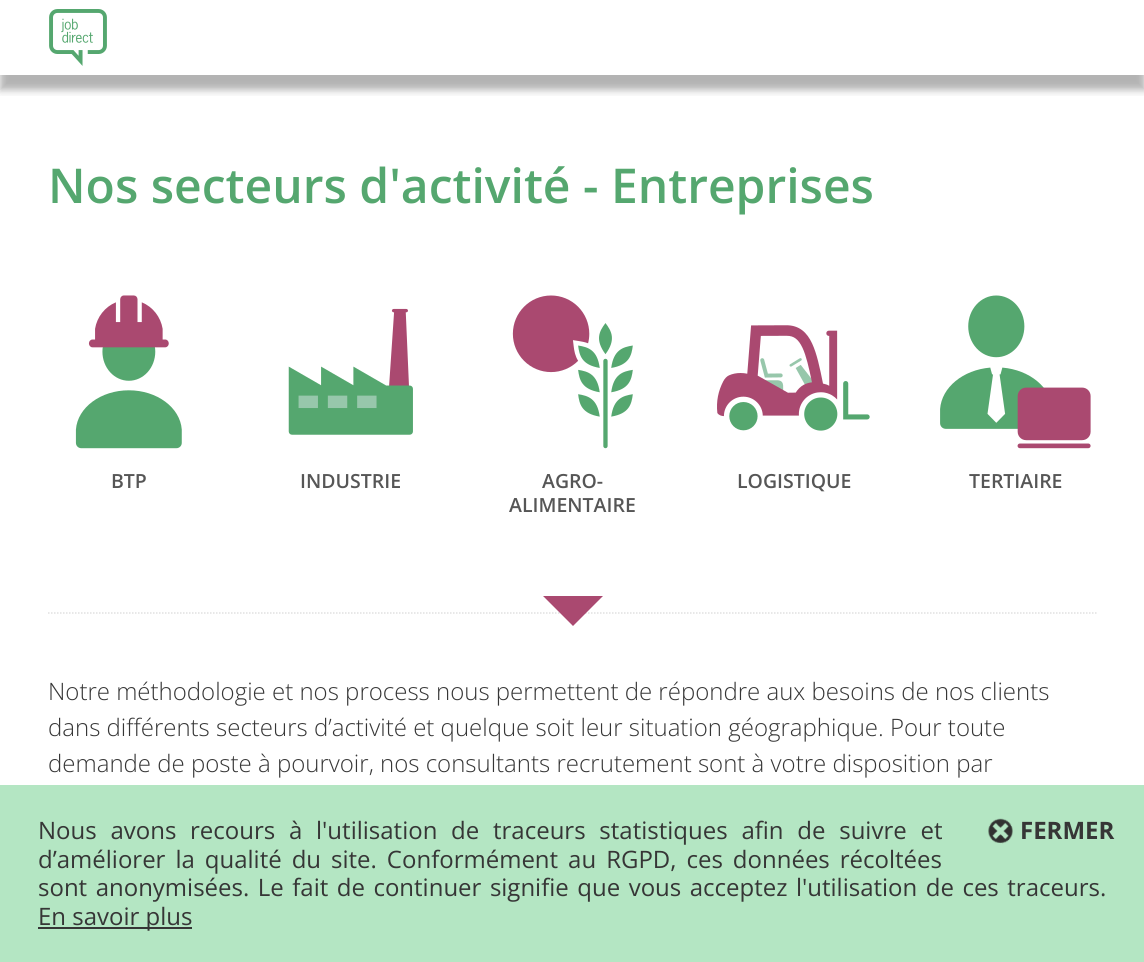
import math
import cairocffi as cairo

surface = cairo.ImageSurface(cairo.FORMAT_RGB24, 1144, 962)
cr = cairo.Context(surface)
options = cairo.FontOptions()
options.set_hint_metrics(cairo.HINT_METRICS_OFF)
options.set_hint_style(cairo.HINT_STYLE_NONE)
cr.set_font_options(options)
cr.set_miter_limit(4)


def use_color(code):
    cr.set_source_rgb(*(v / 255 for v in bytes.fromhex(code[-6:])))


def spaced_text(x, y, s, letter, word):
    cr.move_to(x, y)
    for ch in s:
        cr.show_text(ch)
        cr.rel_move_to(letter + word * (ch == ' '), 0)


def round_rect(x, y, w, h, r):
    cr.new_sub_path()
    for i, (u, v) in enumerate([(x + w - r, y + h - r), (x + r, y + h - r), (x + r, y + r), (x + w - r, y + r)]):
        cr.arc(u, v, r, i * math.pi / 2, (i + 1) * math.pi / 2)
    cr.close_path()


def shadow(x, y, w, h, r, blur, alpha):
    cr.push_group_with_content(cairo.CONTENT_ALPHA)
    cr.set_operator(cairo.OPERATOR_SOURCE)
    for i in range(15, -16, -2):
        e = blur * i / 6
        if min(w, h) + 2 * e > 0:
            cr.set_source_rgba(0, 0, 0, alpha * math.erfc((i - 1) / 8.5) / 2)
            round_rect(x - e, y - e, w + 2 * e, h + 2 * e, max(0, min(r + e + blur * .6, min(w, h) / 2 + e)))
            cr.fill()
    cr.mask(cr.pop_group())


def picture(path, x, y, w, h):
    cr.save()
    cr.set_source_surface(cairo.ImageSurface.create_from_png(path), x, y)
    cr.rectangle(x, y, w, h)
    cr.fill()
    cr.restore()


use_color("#ffffff")
cr.paint()
cr.save()
cr.rectangle(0, 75, 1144, 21)
cr.clip()
use_color("#000000")
shadow(0, 15, 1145, 75, 0, 4, 0.3)
cr.restore()
picture("img1.png", 49, 9, 58, 57)
cr.select_font_face("Open Sans SemiBold")
cr.set_font_size(48)
use_color("#55a76f")
cr.move_to(48, 203)
cr.show_text("Nos secteurs d'activité - Entreprises")
picture("img2.png", 75, 295, 107, 154)
cr.set_font_size(19.5)
use_color("#565656")
cr.move_to(111, 488)
cr.show_text("BTP")
picture("img3.png", 288, 308, 125, 127)
cr.move_to(300, 488)
cr.show_text("INDUSTRIE")
picture("img4.png", 512, 295, 121, 154)
cr.move_to(542, 488)
cr.show_text("AGRO-")
cr.move_to(509, 512)
cr.show_text("ALIMENTAIRE")
picture("img5.png", 717, 325, 153, 106)
cr.move_to(737, 488)
cr.show_text("LOGISTIQUE")
picture("img6.png", 940, 295, 151, 154)
cr.move_to(969, 488)
cr.show_text("TERTIAIRE")
cr.new_path()
cr.move_to(48, 613)
cr.line_to(1096.5, 613)
use_color("#e0e0e0")
cr.set_line_width(1.5)
cr.set_dash([1.5, 1.5])
cr.stroke()
use_color("#aa4970")
cr.new_path()
cr.move_to(543, 596)
cr.line_to(603, 596)
cr.line_to(573, 626)
cr.close_path()
cr.fill()
cr.select_font_face("Open Sans Light")
cr.set_font_size(24)
use_color("#363636")
cr.move_to(48, 700)
cr.show_text("Notre méthodologie et nos process nous permettent de répondre aux besoins de nos clients")
cr.move_to(48, 736)
cr.show_text("dans différents secteurs d’activité et quelque soit leur situation géographique. Pour toute")
cr.move_to(48, 772)
cr.show_text("demande de poste à pourvoir, nos consultants recrutement sont à votre disposition par")
use_color("#b4e6c3")
cr.rectangle(0, 785, 1144, 177)
cr.fill()
cr.select_font_face("Open Sans")
use_color("#363636")
spaced_text(38, 839, "Nous avons recours à l'utilisation de traceurs statistiques afin de suivre et", 0, 7.5)
spaced_text(38, 868, "d’améliorer la qualité du site. Conformément au RGPD, ces données récoltées", 0, 3.75)
spaced_text(38, 896, "sont anonymisées. Le fait de continuer signifie que vous acceptez l'utilisation de ces traceurs.", 0, 2.25)
cr.rectangle(38, 927, 154, 2)
cr.fill()
cr.move_to(38, 925)
cr.show_text("En savoir plus")
picture("img7.png", 988, 818, 25, 26)
cr.select_font_face("Open Sans", cairo.FONT_SLANT_NORMAL, cairo.FONT_WEIGHT_BOLD)
cr.move_to(1020, 839)
cr.show_text("FERMER")
surface.write_to_png("result.png")
